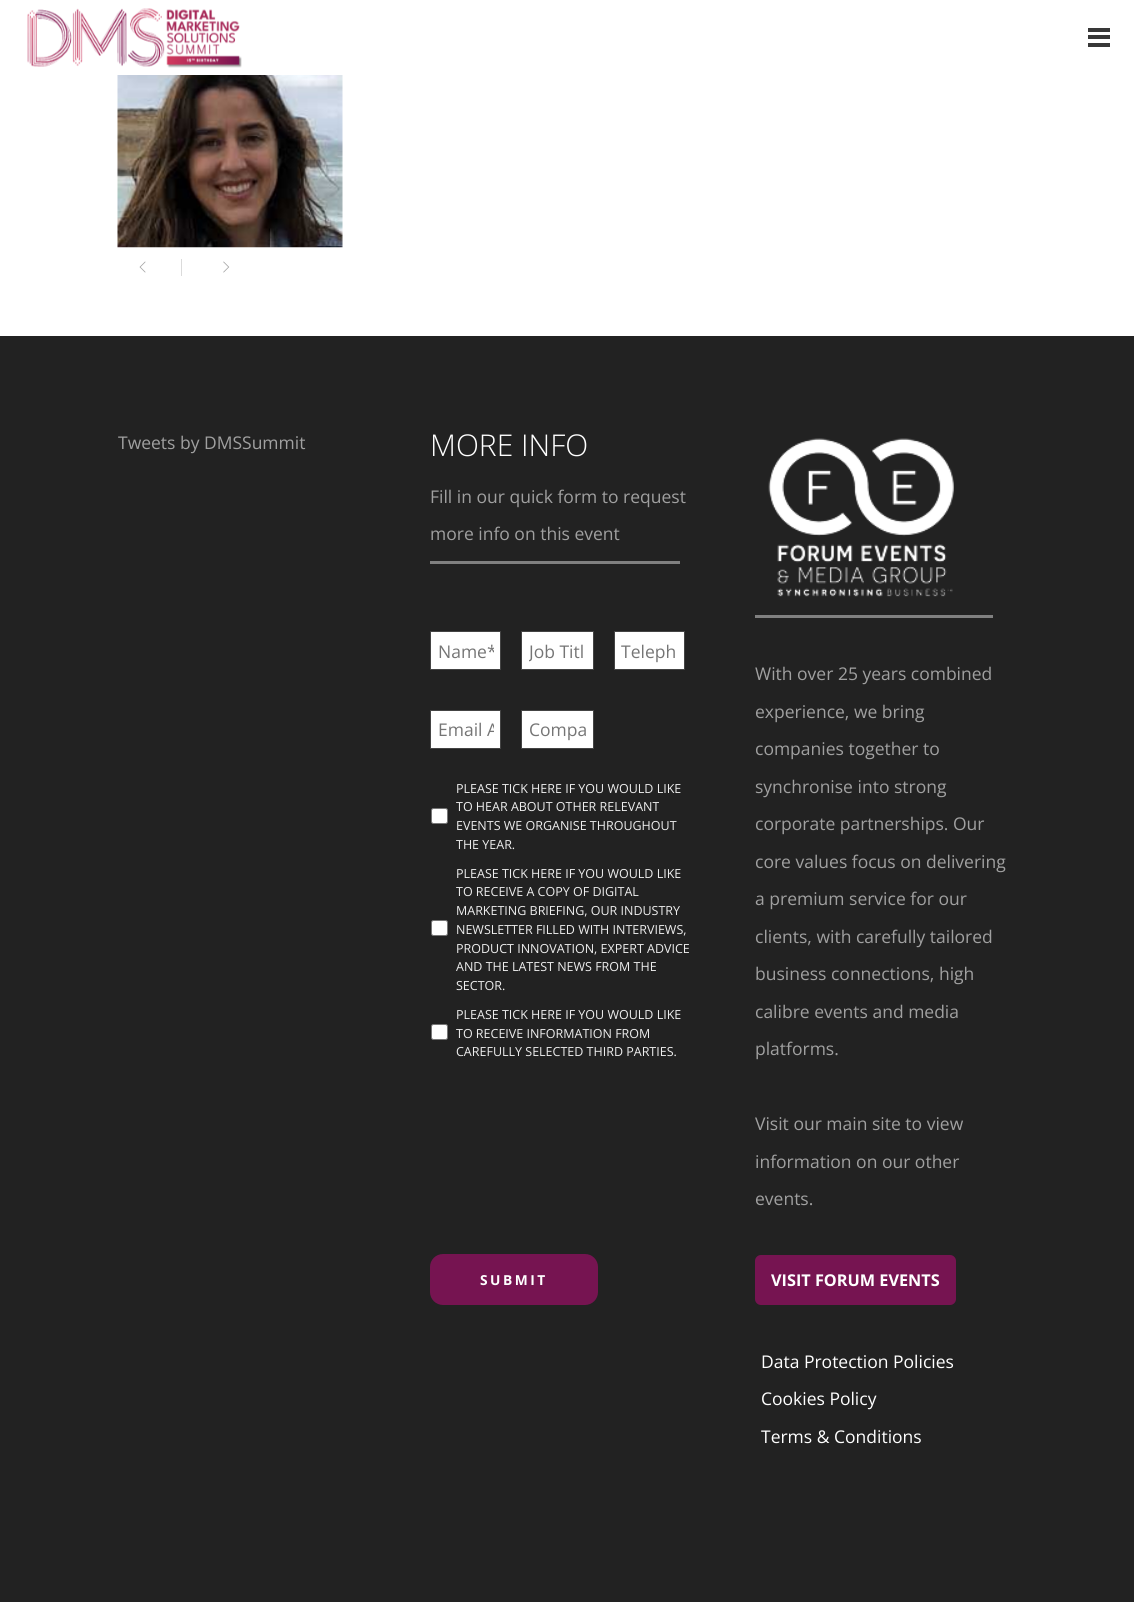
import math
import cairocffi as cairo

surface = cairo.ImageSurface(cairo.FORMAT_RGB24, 1134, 1602)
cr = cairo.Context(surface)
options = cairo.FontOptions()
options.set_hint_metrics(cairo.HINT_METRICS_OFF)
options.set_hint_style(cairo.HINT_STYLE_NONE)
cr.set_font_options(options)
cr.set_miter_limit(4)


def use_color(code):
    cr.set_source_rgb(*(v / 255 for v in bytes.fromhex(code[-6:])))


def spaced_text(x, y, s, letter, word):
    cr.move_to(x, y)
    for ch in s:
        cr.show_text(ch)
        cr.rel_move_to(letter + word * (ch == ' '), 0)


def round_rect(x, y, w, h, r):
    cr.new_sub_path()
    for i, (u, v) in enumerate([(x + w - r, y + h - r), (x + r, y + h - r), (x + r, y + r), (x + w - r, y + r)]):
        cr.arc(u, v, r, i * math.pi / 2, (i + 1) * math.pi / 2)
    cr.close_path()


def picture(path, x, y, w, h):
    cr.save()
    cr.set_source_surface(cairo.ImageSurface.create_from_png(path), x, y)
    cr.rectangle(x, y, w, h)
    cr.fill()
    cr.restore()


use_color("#ffffff")
cr.paint()
picture("img1.png", 27, 8, 215, 60)
use_color("#383838")
cr.rectangle(1088, 28, 22, 4)
cr.fill()
cr.rectangle(1088, 35, 22, 4)
cr.fill()
cr.rectangle(1088, 43, 22, 4)
cr.fill()
picture("img2.png", 117, 75, 226, 173)
picture("img3.png", 139, 261, 7, 12)
use_color("#dbdbdb")
cr.rectangle(181, 259, 1, 17)
cr.fill()
picture("img4.png", 223, 261, 7, 12)
use_color("#222222")
cr.rectangle(0, 336, 1134, 1266)
cr.fill()
cr.select_font_face("Open Sans")
cr.set_font_size(17.5)
use_color("#a0a0a0")
cr.move_to(118, 449)
cr.show_text("Tweets by DMSSummit")
cr.select_font_face("Open Sans Light")
cr.set_font_size(30)
use_color("#ffffff")
cr.move_to(430, 456)
cr.show_text("MORE INFO")
cr.select_font_face("Open Sans")
cr.set_font_size(17.5)
use_color("#a0a0a0")
cr.move_to(430, 503)
cr.show_text("Fill in our quick form to request")
cr.move_to(430, 540)
cr.show_text("more info on this event")
use_color("#808080")
cr.rectangle(430, 561, 250, 3)
cr.fill()
use_color("#ffffff")
cr.rectangle(430.5, 631.5, 70, 38)
cr.fill_preserve()
use_color("#444444")
cr.set_line_width(1)
cr.stroke()
cr.save()
cr.rectangle(438, 639, 56, 24)
cr.clip()
use_color("#757575")
cr.move_to(438, 658)
cr.show_text("Name*")
cr.restore()
use_color("#ffffff")
cr.rectangle(521.5, 631.5, 72, 38)
cr.fill_preserve()
use_color("#444444")
cr.stroke()
cr.save()
cr.rectangle(529, 639, 57, 24)
cr.clip()
use_color("#757575")
cr.move_to(529, 658)
cr.show_text("Job Titl")
cr.restore()
use_color("#ffffff")
cr.rectangle(614.5, 631.5, 70, 38)
cr.fill_preserve()
use_color("#444444")
cr.stroke()
use_color("#757575")
cr.move_to(621, 658)
cr.show_text("Teleph")
use_color("#ffffff")
cr.rectangle(430.5, 710.5, 70, 38)
cr.fill_preserve()
use_color("#444444")
cr.stroke()
cr.save()
cr.rectangle(438, 718, 56, 23)
cr.clip()
use_color("#757575")
cr.move_to(438, 736)
cr.show_text("Email A")
cr.restore()
use_color("#ffffff")
cr.rectangle(521.5, 710.5, 72, 38)
cr.fill_preserve()
use_color("#444444")
cr.stroke()
use_color("#757575")
cr.move_to(529, 736)
cr.show_text("Compa")
use_color("#ffffff")
round_rect(431.5, 808.5, 16, 15, 2)
cr.fill_preserve()
use_color("#767676")
cr.stroke()
cr.set_font_size(12.5)
use_color("#eeeeee")
cr.move_to(456, 793)
cr.show_text("PLEASE TICK HERE IF YOU WOULD LIKE")
cr.move_to(456, 811)
cr.show_text("TO HEAR ABOUT OTHER RELEVANT")
cr.move_to(456, 830)
cr.show_text("EVENTS WE ORGANISE THROUGHOUT")
cr.move_to(456, 849)
cr.show_text("THE YEAR.")
use_color("#ffffff")
round_rect(431.5, 920.5, 16, 15, 2)
cr.fill_preserve()
use_color("#767676")
cr.stroke()
use_color("#eeeeee")
cr.move_to(456, 878)
cr.show_text("PLEASE TICK HERE IF YOU WOULD LIKE")
cr.move_to(456, 896)
cr.show_text("TO RECEIVE A COPY OF DIGITAL")
cr.move_to(456, 915)
cr.show_text("MARKETING BRIEFING, OUR INDUSTRY")
cr.move_to(456, 934)
cr.show_text("NEWSLETTER FILLED WITH INTERVIEWS,")
cr.move_to(456, 953)
cr.show_text("PRODUCT INNOVATION, EXPERT ADVICE")
cr.move_to(456, 971)
cr.show_text("AND THE LATEST NEWS FROM THE")
cr.move_to(456, 990)
cr.show_text("SECTOR.")
use_color("#ffffff")
round_rect(431.5, 1024.5, 16, 15, 2)
cr.fill_preserve()
use_color("#767676")
cr.stroke()
use_color("#eeeeee")
cr.move_to(456, 1019)
cr.show_text("PLEASE TICK HERE IF YOU WOULD LIKE")
cr.move_to(456, 1038)
cr.show_text("TO RECEIVE INFORMATION FROM")
cr.move_to(456, 1056)
cr.show_text("CAREFULLY SELECTED THIRD PARTIES.")
use_color("#761451")
round_rect(430, 1254, 168, 51, 13)
cr.fill()
cr.select_font_face("Open Sans", cairo.FONT_SLANT_NORMAL, cairo.FONT_WEIGHT_BOLD)
cr.set_font_size(13.75)
use_color("#ffffff")
spaced_text(480, 1285, "SUBMIT", 2.5, 0)
picture("img5.png", 768, 438, 186, 159)
use_color("#808080")
cr.rectangle(755, 615, 238, 3)
cr.fill()
cr.select_font_face("Open Sans")
cr.set_font_size(17.5)
use_color("#a0a0a0")
cr.move_to(755, 680)
cr.show_text("With over 25 years combined")
cr.move_to(755, 718)
cr.show_text("experience, we bring")
cr.move_to(755, 755)
cr.show_text("companies together to")
cr.move_to(755, 793)
cr.show_text("synchronise into strong")
cr.move_to(755, 830)
cr.show_text("corporate partnerships. Our")
cr.move_to(755, 868)
cr.show_text("core values focus on delivering")
cr.move_to(755, 905)
cr.show_text("a premium service for our")
cr.move_to(755, 943)
cr.show_text("clients, with carefully tailored")
cr.move_to(755, 980)
cr.show_text("business connections, high")
cr.move_to(755, 1018)
cr.show_text("calibre events and media")
cr.move_to(755, 1055)
cr.show_text("platforms.")
cr.move_to(755, 1130)
cr.show_text("Visit our main site to view")
cr.move_to(755, 1168)
cr.show_text("information on our other")
cr.move_to(755, 1205)
cr.show_text("events.")
use_color("#761451")
round_rect(755, 1255, 201, 50, 6)
cr.fill()
cr.select_font_face("Open Sans", cairo.FONT_SLANT_NORMAL, cairo.FONT_WEIGHT_BOLD)
cr.set_font_size(16.25)
use_color("#ffffff")
cr.move_to(771, 1286)
cr.show_text("VISIT FORUM EVENTS")
cr.select_font_face("Open Sans")
cr.set_font_size(17.5)
cr.move_to(761, 1368)
cr.show_text("Data Protection Policies")
cr.move_to(761, 1405)
cr.show_text("Cookies Policy")
cr.move_to(761, 1443)
cr.show_text("Terms & Conditions")
surface.write_to_png("result.png")
